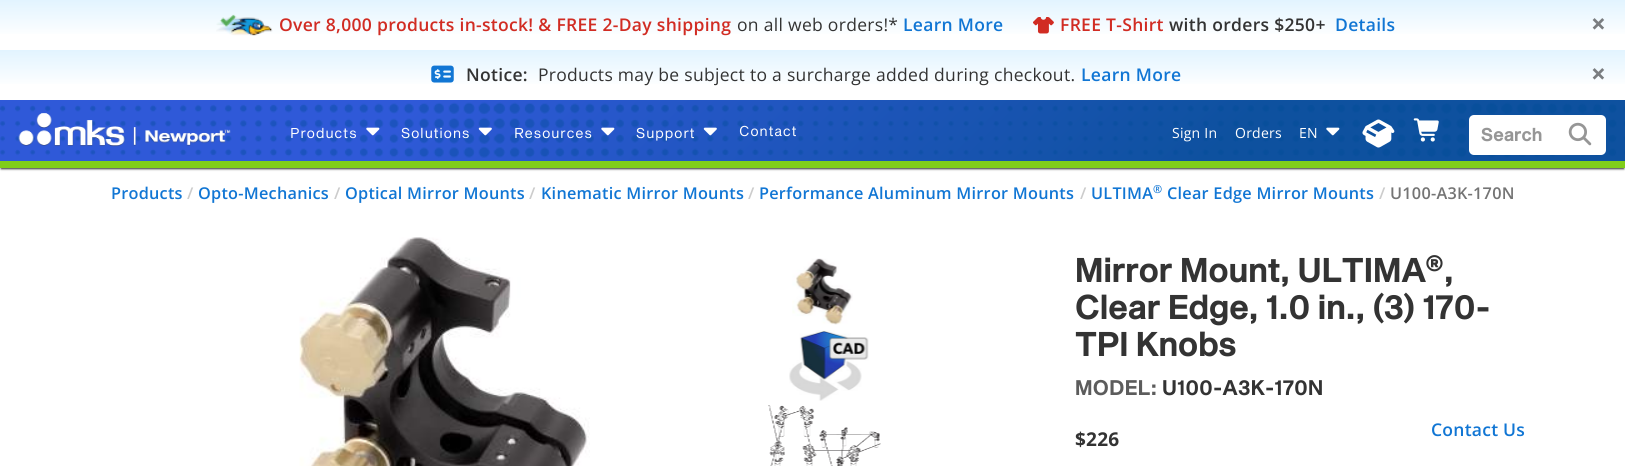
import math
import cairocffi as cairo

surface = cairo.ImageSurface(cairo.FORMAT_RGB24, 1625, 466)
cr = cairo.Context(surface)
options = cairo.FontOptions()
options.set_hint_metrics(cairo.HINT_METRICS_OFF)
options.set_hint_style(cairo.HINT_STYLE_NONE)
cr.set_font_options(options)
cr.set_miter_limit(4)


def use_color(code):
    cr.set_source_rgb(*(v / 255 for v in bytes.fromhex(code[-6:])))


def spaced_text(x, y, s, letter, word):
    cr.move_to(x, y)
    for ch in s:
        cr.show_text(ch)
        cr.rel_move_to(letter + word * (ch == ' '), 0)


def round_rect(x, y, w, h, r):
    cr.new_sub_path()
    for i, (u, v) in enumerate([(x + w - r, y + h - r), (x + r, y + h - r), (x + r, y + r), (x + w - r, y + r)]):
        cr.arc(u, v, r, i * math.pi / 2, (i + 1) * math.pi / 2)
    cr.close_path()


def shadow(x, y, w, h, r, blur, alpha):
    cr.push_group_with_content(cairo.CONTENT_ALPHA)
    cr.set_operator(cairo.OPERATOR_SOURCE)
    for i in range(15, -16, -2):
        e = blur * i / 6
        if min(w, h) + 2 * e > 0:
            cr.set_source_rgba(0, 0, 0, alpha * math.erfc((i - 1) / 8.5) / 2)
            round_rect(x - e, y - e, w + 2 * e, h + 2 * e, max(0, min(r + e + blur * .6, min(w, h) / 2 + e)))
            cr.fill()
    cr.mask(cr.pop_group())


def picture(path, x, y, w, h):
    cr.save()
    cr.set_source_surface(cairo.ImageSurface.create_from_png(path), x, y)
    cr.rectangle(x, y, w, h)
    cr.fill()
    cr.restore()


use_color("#ffffff")
cr.paint()
gradient = cairo.LinearGradient(813, 0, 813, 50)
gradient.add_color_stop_rgba(0, 0.886, 0.957, 1, 1)
gradient.add_color_stop_rgba(0.75, 1, 1, 1, 1)
cr.set_source(gradient)
cr.rectangle(0, 0, 1625, 34)
cr.fill()
picture("img1.png", 216, 14, 57, 22)
cr.select_font_face("Open Sans SemiBold")
cr.set_font_size(17.5)
use_color("#d12c23")
spaced_text(279, 31, "Over 8,000 products in-stock! & FREE 2-Day shipping", 0.3, 0)
cr.select_font_face("Open Sans")
use_color("#333333")
spaced_text(737, 31, "on all web orders!*", 0.3, 0)
cr.select_font_face("Open Sans SemiBold")
use_color("#1176d4")
spaced_text(903, 31, "Learn More", 0.3, 0)
picture("img2.png", 1033, 17, 21, 17)
use_color("#d12c23")
spaced_text(1060, 31, "FREE T-Shirt", 0.3, 0)
use_color("#333333")
spaced_text(1169, 31, "with orders $250+", 0.3, 0)
use_color("#1176d4")
spaced_text(1335, 31, "Details", 0.3, 0)
cr.select_font_face("Open Sans", cairo.FONT_SLANT_NORMAL, cairo.FONT_WEIGHT_BOLD)
cr.set_font_size(26)
use_color("#7a7d80")
cr.move_to(1591, 33)
cr.show_text("×")
gradient = cairo.LinearGradient(813, 50, 813, 100)
gradient.add_color_stop_rgba(0, 0.886, 0.957, 1, 1)
gradient.add_color_stop_rgba(0.75, 1, 1, 1, 1)
cr.set_source(gradient)
cr.rectangle(0, 50, 1625, 34)
cr.fill()
picture("img3.png", 431, 65, 23, 18)
cr.select_font_face("Open Sans SemiBold")
cr.set_font_size(17.5)
use_color("#333333")
spaced_text(466, 81, "Notice:", 0.3, 0)
cr.select_font_face("Open Sans")
spaced_text(538, 81, "Products may be subject to a surcharge added during checkout.", 0.3, 0)
cr.select_font_face("Open Sans SemiBold")
use_color("#1176d4")
spaced_text(1081, 81, "Learn More", 0.3, 0)
cr.select_font_face("Open Sans", cairo.FONT_SLANT_NORMAL, cairo.FONT_WEIGHT_BOLD)
cr.set_font_size(26)
use_color("#7a7d80")
cr.move_to(1591, 83)
cr.show_text("×")
use_color("#333333")
shadow(1, 104, 1623, 65, 0, 1, 1)
gradient = cairo.LinearGradient(391, -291, 1234, 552)
gradient.add_color_stop_rgba(0.25, 0.184, 0.349, 0.847, 1)
gradient.add_color_stop_rgba(0.75, 0.055, 0.318, 0.624, 1)
cr.set_source(gradient)
cr.rectangle(0, 100, 1625, 61)
cr.fill()
use_color("#80ce1a")
cr.rectangle(0, 161, 1625, 7)
cr.fill()
picture("img4.png", 0, 102, 1625, 56)
picture("img5.png", 18, 113, 213, 34)
cr.select_font_face("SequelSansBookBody")
cr.set_font_size(14)
use_color("#ffffff")
spaced_text(290, 138, "Products", 0.6, 0)
picture("img6.png", 366, 127, 14, 9)
spaced_text(401, 138, "Solutions", 0.6, 0)
picture("img7.png", 478, 127, 14, 9)
spaced_text(514, 138, "Resources", 0.6, 0)
picture("img8.png", 601, 127, 14, 9)
spaced_text(636, 138, "Support", 0.6, 0)
picture("img9.png", 703, 127, 14, 9)
spaced_text(739, 136, "Contact", 0.6, 0)
cr.select_font_face("Open Sans")
spaced_text(1172, 138, "Sign In", 0.25, 0)
spaced_text(1235, 138, "Orders", 0.25, 0)
spaced_text(1299, 138, "EN", 0.25, 0)
picture("img10.png", 1326, 127, 14, 9)
picture("img11.png", 1362, 119, 33, 29)
picture("img12.png", 1413, 118, 26, 24)
round_rect(1469, 115, 137, 40, 5)
cr.fill()
cr.select_font_face("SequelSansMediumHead", cairo.FONT_SLANT_NORMAL, cairo.FONT_WEIGHT_BOLD)
cr.set_font_size(17.5)
use_color("#969696")
spaced_text(1481, 141, "Search", 0.6, 0)
picture("img13.png", 1568, 122, 24, 24)
cr.select_font_face("Open Sans SemiBold")
cr.set_font_size(16.25)
use_color("#1176d4")
spaced_text(111, 199, "Products", 0.25, 0)
use_color("#cccccc")
spaced_text(187, 199, "/", 0.25, 0)
use_color("#1176d4")
spaced_text(198, 199, "Opto-Mechanics", 0.25, 0)
use_color("#cccccc")
spaced_text(334, 199, "/", 0.25, 0)
use_color("#1176d4")
spaced_text(345, 199, "Optical Mirror Mounts", 0.25, 0)
use_color("#cccccc")
spaced_text(529, 199, "/", 0.25, 0)
use_color("#1176d4")
spaced_text(541, 199, "Kinematic Mirror Mounts", 0.25, 0)
use_color("#cccccc")
spaced_text(748, 199, "/", 0.25, 0)
use_color("#1176d4")
spaced_text(759, 199, "Performance Aluminum Mirror Mounts", 0.25, 0)
use_color("#cccccc")
spaced_text(1080, 199, "/", 0.25, 0)
use_color("#1176d4")
spaced_text(1091, 199, "ULTIMA", 0.25, 0)
cr.set_font_size(11)
spaced_text(1153, 193, "®", 0.25, 0)
cr.set_font_size(16.25)
spaced_text(1167, 199, "Clear Edge Mirror Mounts", 0.25, 0)
use_color("#cccccc")
spaced_text(1379, 199, "/", 0.25, 0)
use_color("#747474")
spaced_text(1390, 199, "U100-A3K-170N", 0.25, 0)
picture("img14.png", 299, 237, 291, 229)
picture("img15.png", 792, 258, 61, 67)
picture("img16.png", 789, 330, 80, 71)
picture("img17.png", 768, 405, 113, 61)
cr.select_font_face("SequelSansMediumHead", cairo.FONT_SLANT_NORMAL, cairo.FONT_WEIGHT_BOLD)
cr.set_font_size(32.4)
use_color("#333333")
spaced_text(1075, 282, "Mirror Mount, ULTIMA", 0.9, 0)
cr.set_font_size(21)
spaced_text(1425, 271, "®", 0.9, 0)
cr.set_font_size(32.4)
spaced_text(1444, 282, ",", 0.9, 0)
spaced_text(1075, 319, "Clear Edge, 1.0 in., (3) 170-", 0.9, 0)
spaced_text(1075, 356, "TPI Knobs", 0.9, 0)
cr.set_font_size(20)
use_color("#5c5c5c")
spaced_text(1075, 395, "MODEL:", 0.9, 0)
use_color("#333333")
spaced_text(1162, 395, "U100-A3K-170N", 0.9, 0)
cr.select_font_face("Open Sans", cairo.FONT_SLANT_NORMAL, cairo.FONT_WEIGHT_BOLD)
cr.set_font_size(19)
spaced_text(1075, 446, "$226", 0.25, 0)
cr.select_font_face("Open Sans SemiBold")
cr.set_font_size(17.5)
use_color("#1176d4")
spaced_text(1431, 436, "Contact Us", 0.25, 0)
surface.write_to_png("result.png")
